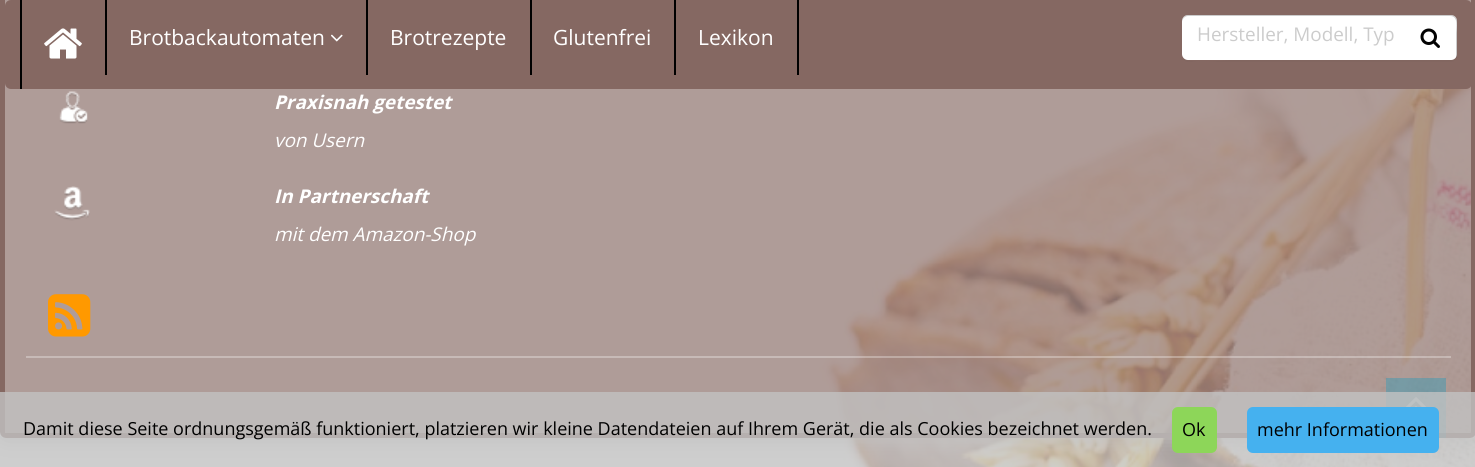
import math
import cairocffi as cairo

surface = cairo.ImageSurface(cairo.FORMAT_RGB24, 1475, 467)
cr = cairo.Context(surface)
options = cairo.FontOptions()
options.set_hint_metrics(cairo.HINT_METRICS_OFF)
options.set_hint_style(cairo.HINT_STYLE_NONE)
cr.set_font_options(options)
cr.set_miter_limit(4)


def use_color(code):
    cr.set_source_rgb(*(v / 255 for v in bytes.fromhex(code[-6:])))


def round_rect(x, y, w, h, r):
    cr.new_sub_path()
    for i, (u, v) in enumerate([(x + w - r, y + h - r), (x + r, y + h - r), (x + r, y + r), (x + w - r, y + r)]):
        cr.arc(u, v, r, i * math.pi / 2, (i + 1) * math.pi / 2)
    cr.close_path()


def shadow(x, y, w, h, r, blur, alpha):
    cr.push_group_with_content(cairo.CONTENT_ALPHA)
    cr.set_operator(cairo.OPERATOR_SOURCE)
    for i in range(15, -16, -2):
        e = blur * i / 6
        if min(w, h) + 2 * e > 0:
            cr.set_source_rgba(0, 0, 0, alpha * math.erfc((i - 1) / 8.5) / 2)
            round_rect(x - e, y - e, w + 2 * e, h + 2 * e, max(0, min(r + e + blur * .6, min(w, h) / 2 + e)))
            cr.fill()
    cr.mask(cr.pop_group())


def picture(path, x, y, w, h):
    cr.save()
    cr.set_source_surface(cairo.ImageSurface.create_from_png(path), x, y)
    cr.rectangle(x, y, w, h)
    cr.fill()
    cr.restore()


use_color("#ffffff")
cr.paint()
picture("img1.png", 819, 0, 656, 467)
cr.save()
cr.set_fill_rule(cairo.FILL_RULE_EVEN_ODD)
cr.new_path()
cr.move_to(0, 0)
cr.line_to(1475, 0)
cr.line_to(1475, 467)
cr.line_to(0, 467)
cr.close_path()
cr.move_to(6, -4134)
cr.line_to(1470, -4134)
cr.curve_to(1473.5, -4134, 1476, -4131.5, 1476, -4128)
cr.line_to(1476, 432)
cr.curve_to(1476, 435.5, 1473.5, 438, 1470, 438)
cr.line_to(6, 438)
cr.curve_to(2.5, 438, 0, 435.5, 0, 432)
cr.line_to(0, -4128)
cr.curve_to(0, -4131.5, 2.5, -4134, 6, -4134)
cr.close_path()
cr.clip()
use_color("#c1c1c1")
shadow(0, -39, 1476, 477, 6, 11, 1)
cr.restore()
cr.set_source_rgba(1, 1, 1, 0.5)
round_rect(2.5, -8.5, 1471, 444, 3.5)
cr.fill_preserve()
use_color("#856862")
cr.set_line_width(5)
cr.stroke()
cr.set_source_rgba(0.522, 0.408, 0.384, 0.65)
cr.new_path()
cr.move_to(5, -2)
cr.line_to(1472, -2)
cr.line_to(1472, 432)
cr.curve_to(1472, 433, 1471, 434, 1470, 434)
cr.line_to(7, 434)
cr.curve_to(6, 434, 5, 433, 5, 432)
cr.close_path()
cr.fill()
use_color("#856862")
round_rect(5, 0, 1467, 89, 6)
cr.fill()
use_color("#000000")
cr.rectangle(20, 0, 2, 89)
cr.fill()
picture("img2.png", 44, 28, 38, 31)
cr.rectangle(105, 0, 2, 75)
cr.fill()
cr.select_font_face("Open Sans")
cr.set_font_size(21)
use_color("#ffffff")
cr.move_to(129, 45)
cr.show_text("Brotbackautomaten")
picture("img3.png", 331, 34, 12, 8)
use_color("#000000")
cr.rectangle(366, 0, 2, 75)
cr.fill()
use_color("#ffffff")
cr.move_to(390, 45)
cr.show_text("Brotrezepte")
use_color("#000000")
cr.rectangle(530, 0, 2, 75)
cr.fill()
use_color("#ffffff")
cr.move_to(553, 45)
cr.show_text("Glutenfrei")
use_color("#000000")
cr.rectangle(797, 0, 2, 75)
cr.fill()
cr.rectangle(674, 0, 2, 75)
cr.fill()
use_color("#ffffff")
cr.move_to(698, 45)
cr.show_text("Lexikon")
use_color("#826660")
cr.new_path()
cr.move_to(1182, 54)
cr.line_to(1182, 56)
cr.curve_to(1182, 59, 1185, 62, 1188, 62)
cr.line_to(1451, 62)
cr.curve_to(1454, 62, 1457, 59, 1457, 56)
cr.line_to(1457, 23)
cr.line_to(1456, 21)
cr.line_to(1456, 43)
cr.curve_to(1456, 48, 1459, 60, 1450, 60)
cr.line_to(1232, 60)
cr.curve_to(1224, 60, 1182, 67, 1182, 54)
cr.close_path()
cr.fill()
use_color("#ffffff")
round_rect(1182, 15, 275, 45, 6)
cr.fill()
cr.set_source_rgba(0, 0, 0, 0.2)
cr.new_path()
cr.move_to(1188, 16)
cr.line_to(1450, 16)
cr.curve_to(1459, 16, 1456, 28, 1456, 33)
cr.line_to(1456, 58)
cr.curve_to(1457, 57, 1457, 55, 1457, 54)
cr.line_to(1457, 21)
cr.curve_to(1457, 18, 1454, 15, 1451, 15)
cr.line_to(1188, 15)
cr.curve_to(1185, 15, 1182, 18, 1182, 21)
cr.line_to(1182, 22)
cr.curve_to(1182, 19, 1185, 16, 1188, 16)
cr.close_path()
cr.fill()
cr.set_font_size(18.9)
use_color("#cccccc")
cr.move_to(1197, 41)
cr.show_text("Hersteller, Modell, Typ")
picture("img4.png", 1420, 28, 20, 20)
picture("img5.png", 59, 91, 29, 33)
cr.select_font_face("Open Sans", cairo.FONT_SLANT_ITALIC, cairo.FONT_WEIGHT_BOLD)
use_color("#ffffff")
cr.move_to(274, 109)
cr.show_text("Praxisnah getestet")
cr.select_font_face("Open Sans", cairo.FONT_SLANT_ITALIC)
cr.move_to(274, 147)
cr.show_text("von Usern")
picture("img6.png", 54, 186, 36, 35)
cr.select_font_face("Open Sans", cairo.FONT_SLANT_ITALIC, cairo.FONT_WEIGHT_BOLD)
cr.move_to(274, 203)
cr.show_text("In Partnerschaft")
cr.select_font_face("Open Sans", cairo.FONT_SLANT_ITALIC)
cr.move_to(274, 241)
cr.show_text("mit dem Amazon-Shop")
picture("img7.png", 48, 294, 43, 43)
cr.set_source_rgba(1, 1, 1, 0.3)
cr.rectangle(26, 356, 1425, 2)
cr.fill()
cr.set_source_rgba(0, 0.608, 0.761, 0.32)
cr.rectangle(1386, 378, 60, 60)
cr.fill()
picture("img8.png", 1406, 397, 20, 10)
cr.set_source_rgba(0.757, 0.757, 0.757, 0.8)
cr.rectangle(0, 392, 1475, 75)
cr.fill()
cr.select_font_face("Open Sans")
cr.set_font_size(18)
use_color("#000000")
cr.move_to(23, 435)
cr.show_text("Damit diese Seite ordnungsgemäß funktioniert, platzieren wir kleine Datendateien auf Ihrem Gerät, die als Cookies bezeichnet werden.")
use_color("#8dd659")
round_rect(1172, 407, 45, 46, 6)
cr.fill()
use_color("#000000")
cr.move_to(1182, 436)
cr.show_text("Ok")
use_color("#45b1ef")
round_rect(1247, 407, 192, 46, 6)
cr.fill()
use_color("#000000")
cr.move_to(1257, 436)
cr.show_text("mehr Informationen")
surface.write_to_png("result.png")
